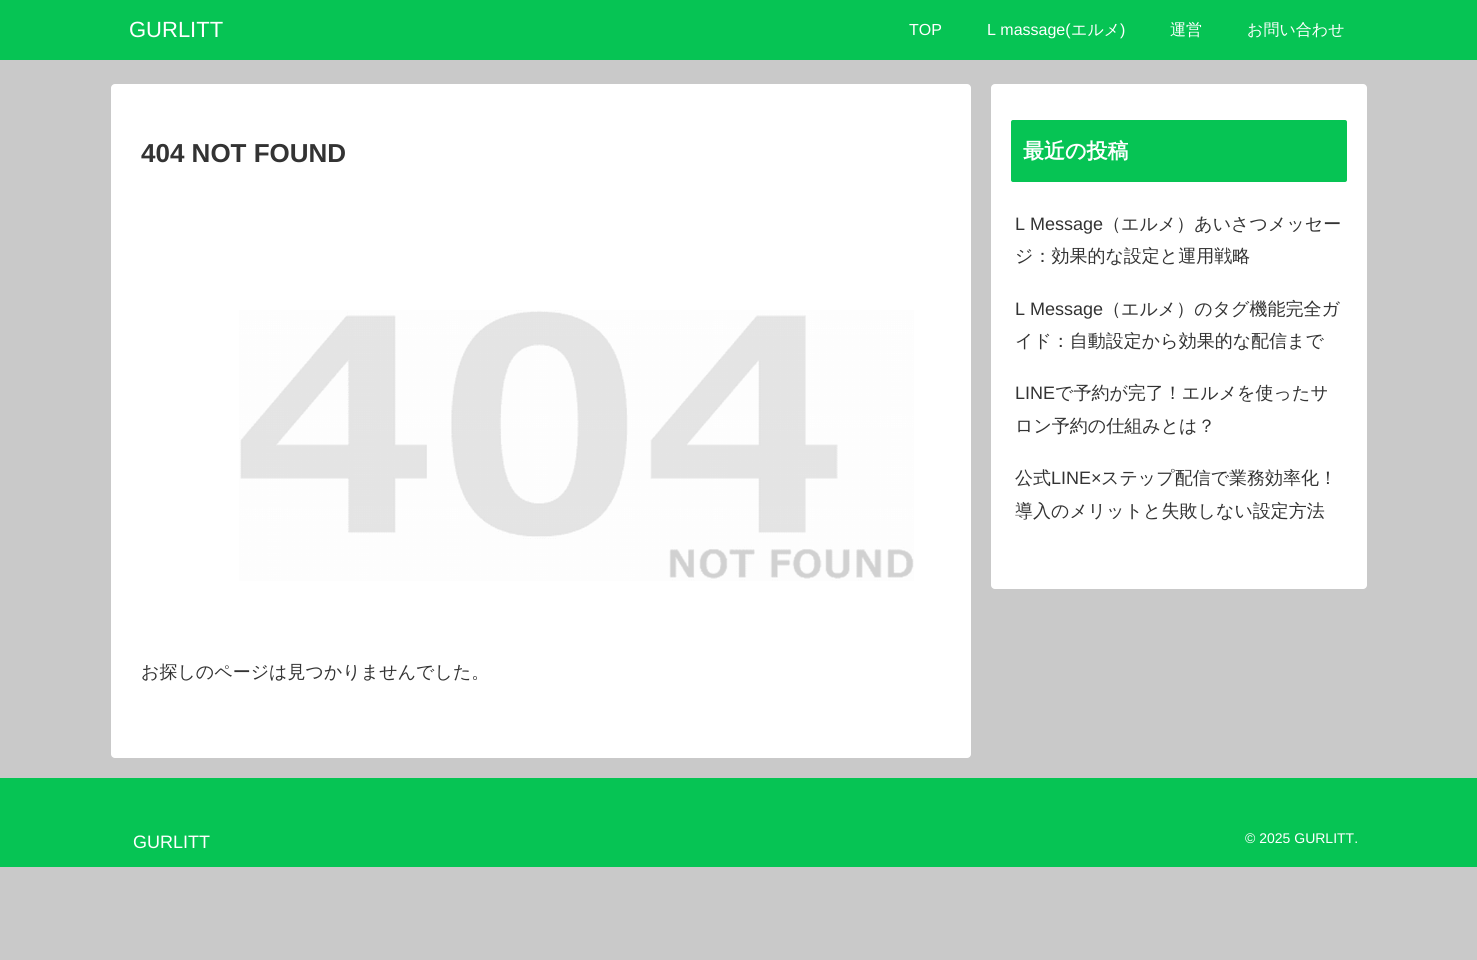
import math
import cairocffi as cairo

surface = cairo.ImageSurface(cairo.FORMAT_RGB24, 1477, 960)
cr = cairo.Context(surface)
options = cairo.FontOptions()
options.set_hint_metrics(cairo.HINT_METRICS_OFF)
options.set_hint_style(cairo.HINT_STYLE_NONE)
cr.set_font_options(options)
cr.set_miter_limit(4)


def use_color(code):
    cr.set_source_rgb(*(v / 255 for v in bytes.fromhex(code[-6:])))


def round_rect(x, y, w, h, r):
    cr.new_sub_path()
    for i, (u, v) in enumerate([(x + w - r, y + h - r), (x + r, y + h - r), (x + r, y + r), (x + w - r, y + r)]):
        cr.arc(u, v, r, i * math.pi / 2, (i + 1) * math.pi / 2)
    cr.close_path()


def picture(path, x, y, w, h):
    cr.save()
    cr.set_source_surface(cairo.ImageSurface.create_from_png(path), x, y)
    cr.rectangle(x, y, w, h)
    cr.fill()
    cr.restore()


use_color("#c9c9c9")
cr.paint()
use_color("#06c454")
cr.rectangle(0, 0, 1477, 60)
cr.fill()
cr.select_font_face("Liberation Sans")
cr.set_font_size(22)
use_color("#ffffff")
cr.move_to(129, 37)
cr.show_text("GURLITT")
cr.set_font_size(16)
cr.move_to(909, 35)
cr.show_text("TOP")
cr.move_to(987, 35)
cr.show_text("L massage(")
cr.select_font_face("WenQuanYi Zen Hei Medium")
cr.move_to(1071, 35)
cr.show_text("エルメ")
cr.select_font_face("Liberation Sans")
cr.move_to(1120, 35)
cr.show_text(")")
cr.select_font_face("WenQuanYi Zen Hei Medium")
cr.move_to(1170, 35)
cr.show_text("運営")
cr.move_to(1247, 35)
cr.show_text("お問い合わせ")
round_rect(111, 84, 860, 674, 4)
cr.fill()
cr.select_font_face("Liberation Sans", cairo.FONT_SLANT_NORMAL, cairo.FONT_WEIGHT_BOLD)
cr.set_font_size(26)
use_color("#333333")
cr.move_to(141, 162)
cr.show_text("404 NOT FOUND")
picture("img1.png", 239, 310, 675, 271)
cr.select_font_face("WenQuanYi Zen Hei Medium")
cr.set_font_size(18)
cr.move_to(141, 678)
cr.show_text("お探しのページは見つかりませんでした。")
use_color("#ffffff")
round_rect(991, 84, 376, 505, 4)
cr.fill()
use_color("#06c454")
round_rect(1011, 120, 336, 62, 2)
cr.fill()
cr.select_font_face("WenQuanYi Zen Hei", cairo.FONT_SLANT_NORMAL, cairo.FONT_WEIGHT_BOLD)
cr.set_font_size(21)
use_color("#ffffff")
cr.move_to(1023, 158)
cr.show_text("最近の投稿")
cr.select_font_face("Liberation Sans")
cr.set_font_size(18)
use_color("#333333")
cr.move_to(1015, 230)
cr.show_text("L Message")
cr.select_font_face("WenQuanYi Zen Hei Medium")
cr.move_to(1103, 230)
cr.show_text("（エルメ）あいさつメッセー")
cr.move_to(1015, 262)
cr.show_text("ジ：効果的な設定と運用戦略")
cr.select_font_face("Liberation Sans")
cr.move_to(1015, 315)
cr.show_text("L Message")
cr.select_font_face("WenQuanYi Zen Hei Medium")
cr.move_to(1103, 315)
cr.show_text("（エルメ）のタグ機能完全ガ")
cr.move_to(1015, 347)
cr.show_text("イド：自動設定から効果的な配信まで")
cr.select_font_face("Liberation Sans")
cr.move_to(1015, 399)
cr.show_text("LINE")
cr.select_font_face("WenQuanYi Zen Hei Medium")
cr.move_to(1055, 399)
cr.show_text("で予約が完了！エルメを使ったサ")
cr.move_to(1015, 432)
cr.show_text("ロン予約の仕組みとは？")
cr.move_to(1015, 484)
cr.show_text("公式")
cr.select_font_face("Liberation Sans")
cr.move_to(1051, 484)
cr.show_text("LINE×")
cr.select_font_face("WenQuanYi Zen Hei Medium")
cr.move_to(1101, 484)
cr.show_text("ステップ配信で業務効率化！")
cr.move_to(1015, 517)
cr.show_text("導入のメリットと失敗しない設定方法")
use_color("#06c454")
cr.rectangle(0, 778, 1477, 89)
cr.fill()
cr.select_font_face("Liberation Sans")
use_color("#ffffff")
cr.move_to(133, 848)
cr.show_text("GURLITT")
cr.set_font_size(14)
cr.move_to(1245, 843)
cr.show_text("© 2025 GURLITT.")
surface.write_to_png("result.png")
